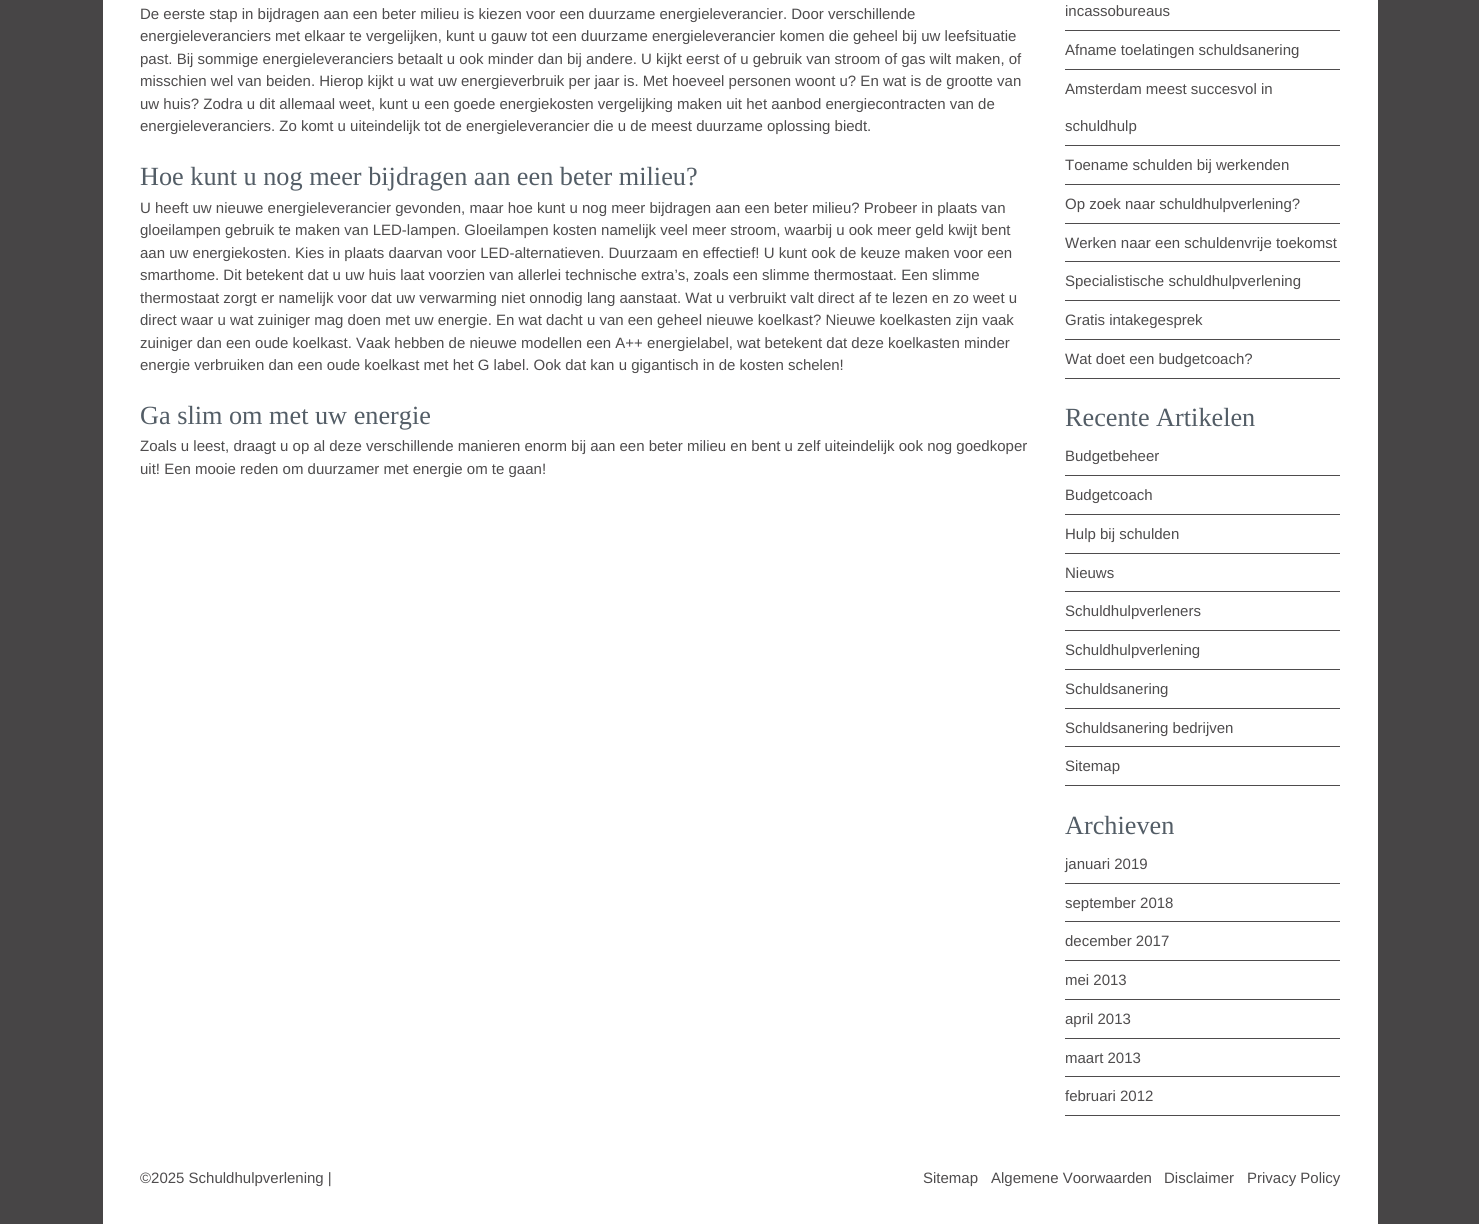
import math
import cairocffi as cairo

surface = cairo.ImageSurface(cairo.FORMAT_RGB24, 1479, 1224)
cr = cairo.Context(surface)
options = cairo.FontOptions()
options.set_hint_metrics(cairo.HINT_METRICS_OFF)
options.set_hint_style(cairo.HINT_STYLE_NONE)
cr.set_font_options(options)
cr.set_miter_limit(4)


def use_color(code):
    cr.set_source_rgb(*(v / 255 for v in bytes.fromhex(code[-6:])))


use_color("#474546")
cr.paint()
use_color("#ffffff")
cr.rectangle(103, 0, 1275, 1224)
cr.fill()
cr.select_font_face("Liberation Sans")
cr.set_font_size(15)
use_color("#4e4c4d")
cr.move_to(140, 19)
cr.show_text("De eerste stap in bijdragen aan een beter milieu is kiezen voor een duurzame energieleverancier. Door verschillende")
cr.move_to(140, 41)
cr.show_text("energieleveranciers met elkaar te vergelijken, kunt u gauw tot een duurzame energieleverancier komen die geheel bij uw leefsituatie")
cr.move_to(140, 64)
cr.show_text("past. Bij sommige energieleveranciers betaalt u ook minder dan bij andere. U kijkt eerst of u gebruik van stroom of gas wilt maken, of")
cr.move_to(140, 86)
cr.show_text("misschien wel van beiden. Hierop kijkt u wat uw energieverbruik per jaar is. Met hoeveel personen woont u? En wat is de grootte van")
cr.move_to(140, 109)
cr.show_text("uw huis? Zodra u dit allemaal weet, kunt u een goede energiekosten vergelijking maken uit het aanbod energiecontracten van de")
cr.move_to(140, 131)
cr.show_text("energieleveranciers. Zo komt u uiteindelijk tot de energieleverancier die u de meest duurzame oplossing biedt.")
cr.select_font_face("Liberation Serif")
cr.set_font_size(26.25)
use_color("#535d66")
cr.move_to(140, 185)
cr.show_text("Hoe kunt u nog meer bijdragen aan een beter milieu?")
cr.select_font_face("Liberation Sans")
cr.set_font_size(15)
use_color("#4e4c4d")
cr.move_to(140, 213)
cr.show_text("U heeft uw nieuwe energieleverancier gevonden, maar hoe kunt u nog meer bijdragen aan een beter milieu? Probeer in plaats van")
cr.move_to(140, 235)
cr.show_text("gloeilampen gebruik te maken van LED-lampen. Gloeilampen kosten namelijk veel meer stroom, waarbij u ook meer geld kwijt bent")
cr.move_to(140, 258)
cr.show_text("aan uw energiekosten. Kies in plaats daarvan voor LED-alternatieven. Duurzaam en effectief! U kunt ook de keuze maken voor een")
cr.move_to(140, 280)
cr.show_text("smarthome. Dit betekent dat u uw huis laat voorzien van allerlei technische extra’s, zoals een slimme thermostaat. Een slimme")
cr.move_to(140, 303)
cr.show_text("thermostaat zorgt er namelijk voor dat uw verwarming niet onnodig lang aanstaat. Wat u verbruikt valt direct af te lezen en zo weet u")
cr.move_to(140, 325)
cr.show_text("direct waar u wat zuiniger mag doen met uw energie. En wat dacht u van een geheel nieuwe koelkast? Nieuwe koelkasten zijn vaak")
cr.move_to(140, 348)
cr.show_text("zuiniger dan een oude koelkast. Vaak hebben de nieuwe modellen een A++ energielabel, wat betekent dat deze koelkasten minder")
cr.move_to(140, 370)
cr.show_text("energie verbruiken dan een oude koelkast met het G label. Ook dat kan u gigantisch in de kosten schelen!")
cr.select_font_face("Liberation Serif")
cr.set_font_size(26.25)
use_color("#535d66")
cr.move_to(140, 424)
cr.show_text("Ga slim om met uw energie")
cr.select_font_face("Liberation Sans")
cr.set_font_size(15)
use_color("#4e4c4d")
cr.move_to(140, 451)
cr.show_text("Zoals u leest, draagt u op al deze verschillende manieren enorm bij aan een beter milieu en bent u zelf uiteindelijk ook nog goedkoper")
cr.move_to(140, 474)
cr.show_text("uit! Een mooie reden om duurzamer met energie om te gaan!")
cr.rectangle(1065, 30, 275, 1)
cr.fill()
cr.move_to(1065, 16)
cr.show_text("incassobureaus")
cr.rectangle(1065, 69, 275, 1)
cr.fill()
cr.move_to(1065, 55)
cr.show_text("Afname toelatingen schuldsanering")
cr.rectangle(1065, 145, 275, 1)
cr.fill()
cr.move_to(1065, 94)
cr.show_text("Amsterdam meest succesvol in")
cr.move_to(1065, 131)
cr.show_text("schuldhulp")
cr.rectangle(1065, 184, 275, 1)
cr.fill()
cr.move_to(1065, 170)
cr.show_text("Toename schulden bij werkenden")
cr.rectangle(1065, 223, 275, 1)
cr.fill()
cr.move_to(1065, 209)
cr.show_text("Op zoek naar schuldhulpverlening?")
cr.rectangle(1065, 261, 275, 1)
cr.fill()
cr.move_to(1065, 248)
cr.show_text("Werken naar een schuldenvrije toekomst")
cr.rectangle(1065, 300, 275, 1)
cr.fill()
cr.move_to(1065, 286)
cr.show_text("Specialistische schuldhulpverlening")
cr.rectangle(1065, 339, 275, 1)
cr.fill()
cr.move_to(1065, 325)
cr.show_text("Gratis intakegesprek")
cr.rectangle(1065, 378, 275, 1)
cr.fill()
cr.move_to(1065, 364)
cr.show_text("Wat doet een budgetcoach?")
cr.select_font_face("Liberation Serif")
cr.set_font_size(26.25)
use_color("#535d66")
cr.move_to(1065, 426)
cr.show_text("Recente Artikelen")
use_color("#4e4c4d")
cr.rectangle(1065, 475, 275, 1)
cr.fill()
cr.select_font_face("Liberation Sans")
cr.set_font_size(15)
cr.move_to(1065, 461)
cr.show_text("Budgetbeheer")
cr.rectangle(1065, 514, 275, 1)
cr.fill()
cr.move_to(1065, 500)
cr.show_text("Budgetcoach")
cr.rectangle(1065, 553, 275, 1)
cr.fill()
cr.move_to(1065, 539)
cr.show_text("Hulp bij schulden")
cr.rectangle(1065, 591, 275, 1)
cr.fill()
cr.move_to(1065, 578)
cr.show_text("Nieuws")
cr.rectangle(1065, 630, 275, 1)
cr.fill()
cr.move_to(1065, 616)
cr.show_text("Schuldhulpverleners")
cr.rectangle(1065, 669, 275, 1)
cr.fill()
cr.move_to(1065, 655)
cr.show_text("Schuldhulpverlening")
cr.rectangle(1065, 708, 275, 1)
cr.fill()
cr.move_to(1065, 694)
cr.show_text("Schuldsanering")
cr.rectangle(1065, 746, 275, 1)
cr.fill()
cr.move_to(1065, 733)
cr.show_text("Schuldsanering bedrijven")
cr.rectangle(1065, 785, 275, 1)
cr.fill()
cr.move_to(1065, 771)
cr.show_text("Sitemap")
cr.select_font_face("Liberation Serif")
cr.set_font_size(26.25)
use_color("#535d66")
cr.move_to(1065, 834)
cr.show_text("Archieven")
use_color("#4e4c4d")
cr.rectangle(1065, 883, 275, 1)
cr.fill()
cr.select_font_face("Liberation Sans")
cr.set_font_size(15)
cr.move_to(1065, 869)
cr.show_text("januari 2019")
cr.rectangle(1065, 921, 275, 1)
cr.fill()
cr.move_to(1065, 908)
cr.show_text("september 2018")
cr.rectangle(1065, 960, 275, 1)
cr.fill()
cr.move_to(1065, 946)
cr.show_text("december 2017")
cr.rectangle(1065, 999, 275, 1)
cr.fill()
cr.move_to(1065, 985)
cr.show_text("mei 2013")
cr.rectangle(1065, 1038, 275, 1)
cr.fill()
cr.move_to(1065, 1024)
cr.show_text("april 2013")
cr.rectangle(1065, 1076, 275, 1)
cr.fill()
cr.move_to(1065, 1063)
cr.show_text("maart 2013")
cr.rectangle(1065, 1115, 275, 1)
cr.fill()
cr.move_to(1065, 1101)
cr.show_text("februari 2012")
cr.move_to(140, 1183)
cr.show_text("©2025 Schuldhulpverlening |")
cr.move_to(923, 1183)
cr.show_text("Sitemap")
cr.move_to(991, 1183)
cr.show_text("Algemene Voorwaarden")
cr.move_to(1164, 1183)
cr.show_text("Disclaimer")
cr.move_to(1247, 1183)
cr.show_text("Privacy Policy")
surface.write_to_png("result.png")
